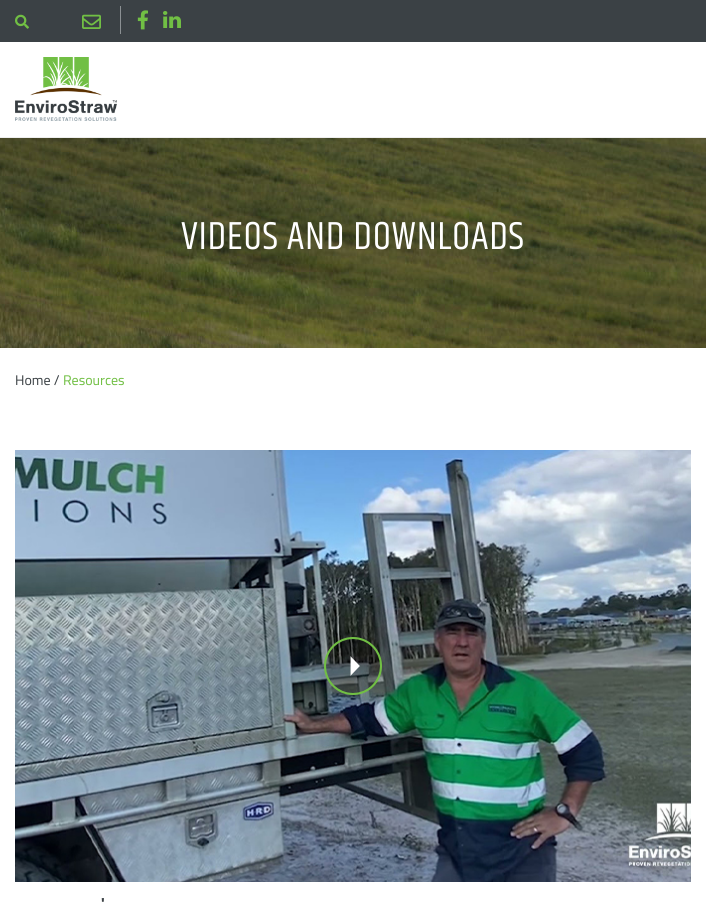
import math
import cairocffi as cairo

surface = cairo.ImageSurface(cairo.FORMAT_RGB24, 706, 902)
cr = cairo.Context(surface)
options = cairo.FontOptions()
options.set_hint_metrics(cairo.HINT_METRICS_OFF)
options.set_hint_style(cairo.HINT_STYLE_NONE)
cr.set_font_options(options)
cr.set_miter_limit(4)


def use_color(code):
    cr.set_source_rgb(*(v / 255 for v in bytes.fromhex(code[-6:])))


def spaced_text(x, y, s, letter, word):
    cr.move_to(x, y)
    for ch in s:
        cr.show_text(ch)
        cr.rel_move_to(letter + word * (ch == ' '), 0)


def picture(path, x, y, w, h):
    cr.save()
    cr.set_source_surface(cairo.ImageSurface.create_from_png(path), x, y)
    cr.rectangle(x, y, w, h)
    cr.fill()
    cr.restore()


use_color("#ffffff")
cr.paint()
use_color("#eeeeee")
cr.rectangle(0, 137, 706, 1)
cr.fill()
use_color("#3b4145")
cr.rectangle(0, 0, 706, 42)
cr.fill()
picture("img1.png", 15, 14, 14, 15)
picture("img2.png", 82, 14, 19, 15)
use_color("#8b9093")
cr.rectangle(120, 6, 1, 28)
cr.fill()
picture("img3.png", 137, 10, 11, 20)
picture("img4.png", 163, 11, 18, 17)
picture("img5.png", 15, 57, 102, 64)
picture("img6.png", 0, 138, 706, 210)
cr.select_font_face("Khand")
cr.set_font_size(40)
use_color("#ffffff")
spaced_text(181, 249, "VIDEOS AND DOWNLOADS", 0.7, 0)
cr.select_font_face("Cairo")
cr.set_font_size(14)
use_color("#3b4145")
cr.move_to(15, 385)
cr.show_text("Home /")
use_color("#71bf44")
cr.move_to(63, 385)
cr.show_text("Resources")
picture("img7.png", 15, 450, 676, 432)
picture("img8.png", 324, 637, 58, 58)
cr.select_font_face("Cairo", cairo.FONT_SLANT_NORMAL, cairo.FONT_WEIGHT_BOLD)
cr.set_font_size(16)
use_color("#3b4145")
cr.move_to(101, 909)
cr.show_text("'")
surface.write_to_png("result.png")
